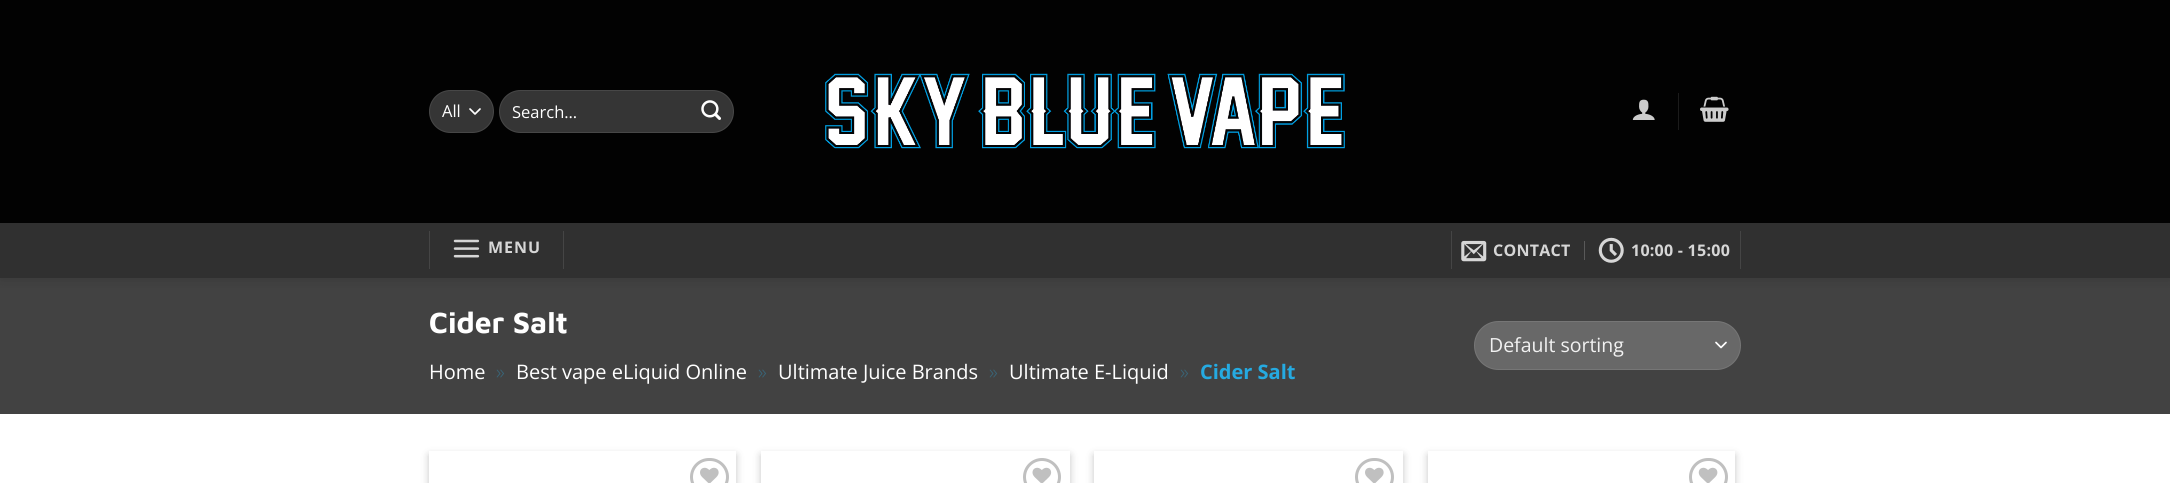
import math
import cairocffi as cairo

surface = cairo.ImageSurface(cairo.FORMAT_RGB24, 2170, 483)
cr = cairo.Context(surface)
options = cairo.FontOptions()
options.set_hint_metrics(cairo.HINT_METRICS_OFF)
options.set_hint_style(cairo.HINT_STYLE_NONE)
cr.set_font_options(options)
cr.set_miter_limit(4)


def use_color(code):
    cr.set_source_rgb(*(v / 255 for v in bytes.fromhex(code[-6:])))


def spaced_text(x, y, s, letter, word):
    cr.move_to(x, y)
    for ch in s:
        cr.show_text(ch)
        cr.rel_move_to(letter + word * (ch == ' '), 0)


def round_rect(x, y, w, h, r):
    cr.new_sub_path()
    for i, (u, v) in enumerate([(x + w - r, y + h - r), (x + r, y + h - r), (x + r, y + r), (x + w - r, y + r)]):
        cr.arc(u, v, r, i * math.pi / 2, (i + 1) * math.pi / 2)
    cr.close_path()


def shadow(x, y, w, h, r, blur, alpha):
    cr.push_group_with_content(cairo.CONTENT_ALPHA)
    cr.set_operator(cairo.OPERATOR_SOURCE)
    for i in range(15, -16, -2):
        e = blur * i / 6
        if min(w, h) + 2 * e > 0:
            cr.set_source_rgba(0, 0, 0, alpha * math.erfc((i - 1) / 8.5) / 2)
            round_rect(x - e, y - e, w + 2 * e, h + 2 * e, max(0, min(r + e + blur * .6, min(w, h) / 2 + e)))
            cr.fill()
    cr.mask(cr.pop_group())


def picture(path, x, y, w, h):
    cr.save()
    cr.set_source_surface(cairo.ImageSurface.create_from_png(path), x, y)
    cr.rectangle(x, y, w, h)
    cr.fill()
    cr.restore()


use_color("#ffffff")
cr.paint()
use_color("#424242")
cr.rectangle(0, 278, 2170, 136)
cr.fill()
use_color("#000000")
shadow(1, 1, 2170, 278, 0, 6, 0.15)
use_color("#020202")
cr.rectangle(0, 0, 2170, 223)
cr.fill()
use_color("#353535")
round_rect(429, 90, 65, 43, 21.5)
cr.fill()
cr.new_path()
cr.move_to(470, 109)
cr.line_to(475, 114)
cr.line_to(480, 109)
use_color("#ffffff")
cr.set_line_width(1.7)
cr.set_line_cap(cairo.LINE_CAP_ROUND)
cr.set_line_join(cairo.LINE_JOIN_ROUND)
cr.stroke()
round_rect(429.5, 90.5, 64, 42, 21)
cr.set_source_rgba(1, 1, 1, 0.09)
cr.set_line_width(1)
cr.set_line_cap(cairo.LINE_CAP_BUTT)
cr.set_line_join(cairo.LINE_JOIN_MITER)
cr.stroke()
cr.select_font_face("Open Sans")
cr.set_font_size(16.5)
use_color("#ffffff")
cr.move_to(442, 117)
cr.show_text("All")
use_color("#353535")
round_rect(499, 90, 235, 43, 21.5)
cr.fill()
round_rect(499.5, 90.5, 234, 42, 21)
cr.set_source_rgba(1, 1, 1, 0.09)
cr.stroke()
use_color("#ffffff")
cr.move_to(512, 118)
cr.show_text("Search…")
picture("img1.png", 701, 100, 20, 20)
picture("img2.png", 825, 73, 520, 76)
picture("img3.png", 1632, 99, 23, 21)
use_color("#1b1b1b")
cr.rectangle(1678, 93, 1, 37)
cr.fill()
picture("img4.png", 1700, 96, 29, 26)
use_color("#303030")
cr.rectangle(0, 223, 2170, 55)
cr.fill()
use_color("#454545")
cr.rectangle(429, 231, 1, 38)
cr.fill()
picture("img5.png", 453, 239, 27, 19)
cr.select_font_face("Open Sans", cairo.FONT_SLANT_NORMAL, cairo.FONT_WEIGHT_BOLD)
cr.set_font_size(16)
use_color("#d6d6d6")
spaced_text(488, 253, "MENU", 1, 0)
use_color("#454545")
cr.rectangle(563, 231, 1, 38)
cr.fill()
cr.rectangle(1451, 231, 1, 38)
cr.fill()
picture("img6.png", 1461, 240, 26, 22)
use_color("#d6d6d6")
spaced_text(1493, 256, "CONTACT", 0.25, 0)
use_color("#595959")
cr.rectangle(1584, 241, 1, 19)
cr.fill()
picture("img7.png", 1598, 237, 26, 26)
use_color("#d6d6d6")
spaced_text(1631, 256, "10:00 - 15:00", 0.25, 0)
use_color("#454545")
cr.rectangle(1740, 231, 1, 38)
cr.fill()
cr.select_font_face("Maven Pro", cairo.FONT_SLANT_NORMAL, cairo.FONT_WEIGHT_BOLD)
cr.set_font_size(30)
use_color("#ffffff")
cr.move_to(429, 333)
cr.show_text("Cider Salt")
cr.select_font_face("Open Sans")
cr.set_font_size(20)
cr.move_to(429, 379)
cr.show_text("Home")
cr.select_font_face("Open Sans Light")
use_color("#38667a")
cr.move_to(496, 379)
cr.show_text("»")
cr.select_font_face("Open Sans")
use_color("#ffffff")
cr.move_to(516, 379)
cr.show_text("Best vape eLiquid Online")
cr.select_font_face("Open Sans Light")
use_color("#38667a")
cr.move_to(758, 379)
cr.show_text("»")
cr.select_font_face("Open Sans")
use_color("#ffffff")
cr.move_to(778, 379)
cr.show_text("Ultimate Juice Brands")
cr.select_font_face("Open Sans Light")
use_color("#38667a")
cr.move_to(989, 379)
cr.show_text("»")
cr.select_font_face("Open Sans")
use_color("#ffffff")
cr.move_to(1009, 379)
cr.show_text("Ultimate E-Liquid")
cr.select_font_face("Open Sans Light")
use_color("#38667a")
cr.move_to(1180, 379)
cr.show_text("»")
cr.select_font_face("Open Sans", cairo.FONT_SLANT_NORMAL, cairo.FONT_WEIGHT_BOLD)
use_color("#25aae1")
cr.move_to(1200, 379)
cr.show_text("Cider Salt")
use_color("#686868")
round_rect(1474, 321, 267, 49, 24.5)
cr.fill()
cr.new_path()
cr.move_to(1716, 342.5)
cr.line_to(1721, 347.5)
cr.line_to(1726, 342.5)
use_color("#ffffff")
cr.set_line_width(1.7)
cr.set_line_cap(cairo.LINE_CAP_ROUND)
cr.set_line_join(cairo.LINE_JOIN_ROUND)
cr.stroke()
round_rect(1474.5, 321.5, 266, 48, 24)
cr.set_source_rgba(1, 1, 1, 0.09)
cr.set_line_width(1)
cr.set_line_cap(cairo.LINE_CAP_BUTT)
cr.set_line_join(cairo.LINE_JOIN_MITER)
cr.stroke()
cr.select_font_face("Open Sans")
cr.set_font_size(19.5)
use_color("#f1f1f1")
cr.move_to(1489, 352)
cr.show_text("Default sorting")
use_color("#000000")
shadow(429, 455, 307, 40, 0, 4, 0.23)
use_color("#ffffff")
cr.rectangle(429, 451, 307, 32)
cr.fill()
round_rect(691.5, 459.5, 36, 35, 17.5)
use_color("#c0c0c0")
cr.set_line_width(3)
cr.stroke()
picture("img8.png", 700, 467, 19, 16)
use_color("#000000")
shadow(761, 455, 309, 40, 0, 4, 0.23)
use_color("#ffffff")
cr.rectangle(761, 451, 309, 32)
cr.fill()
cr.arc(1042, 477, 17.5, 0, 2 * math.pi)
use_color("#c0c0c0")
cr.stroke()
picture("img9.png", 1032, 467, 20, 16)
use_color("#000000")
shadow(1094, 455, 309, 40, 0, 4, 0.23)
use_color("#ffffff")
cr.rectangle(1094, 451, 309, 32)
cr.fill()
round_rect(1356.5, 459.5, 36, 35, 17.5)
use_color("#c0c0c0")
cr.stroke()
picture("img8.png", 1365, 467, 19, 16)
use_color("#000000")
shadow(1428, 455, 307, 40, 0, 4, 0.23)
use_color("#ffffff")
cr.rectangle(1428, 451, 307, 32)
cr.fill()
round_rect(1690.5, 459.5, 36, 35, 17.5)
use_color("#c0c0c0")
cr.stroke()
picture("img10.png", 1698, 467, 20, 16)
surface.write_to_png("result.png")
